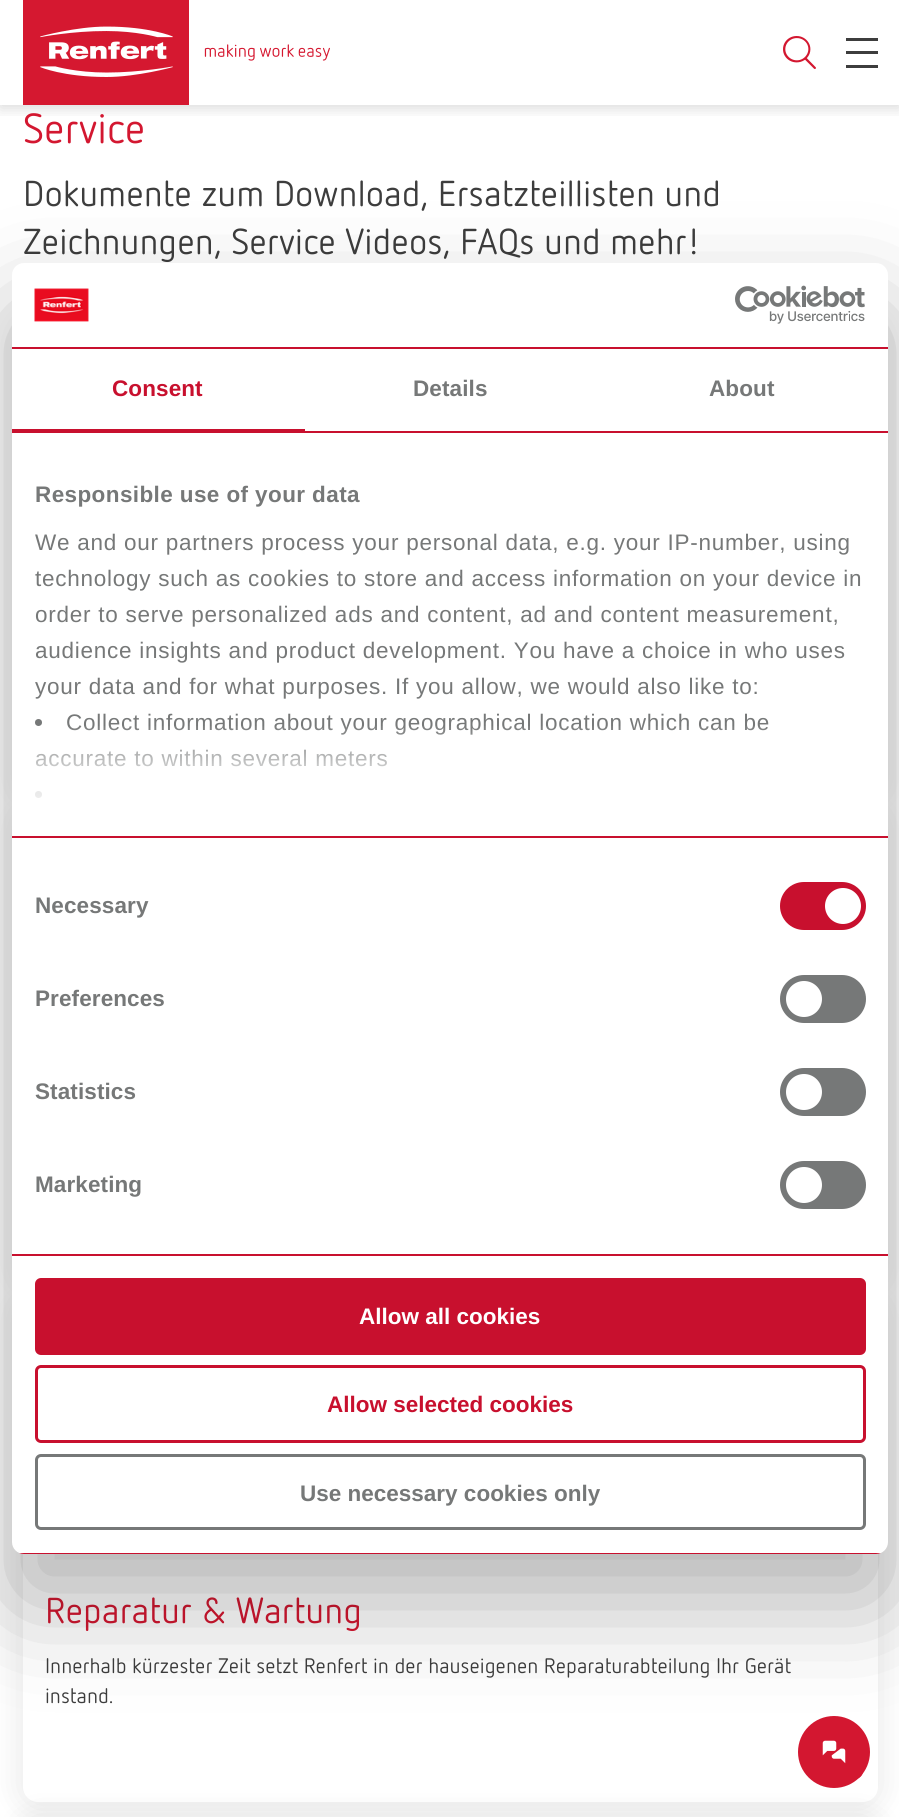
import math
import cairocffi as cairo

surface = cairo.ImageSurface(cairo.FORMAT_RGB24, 899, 1817)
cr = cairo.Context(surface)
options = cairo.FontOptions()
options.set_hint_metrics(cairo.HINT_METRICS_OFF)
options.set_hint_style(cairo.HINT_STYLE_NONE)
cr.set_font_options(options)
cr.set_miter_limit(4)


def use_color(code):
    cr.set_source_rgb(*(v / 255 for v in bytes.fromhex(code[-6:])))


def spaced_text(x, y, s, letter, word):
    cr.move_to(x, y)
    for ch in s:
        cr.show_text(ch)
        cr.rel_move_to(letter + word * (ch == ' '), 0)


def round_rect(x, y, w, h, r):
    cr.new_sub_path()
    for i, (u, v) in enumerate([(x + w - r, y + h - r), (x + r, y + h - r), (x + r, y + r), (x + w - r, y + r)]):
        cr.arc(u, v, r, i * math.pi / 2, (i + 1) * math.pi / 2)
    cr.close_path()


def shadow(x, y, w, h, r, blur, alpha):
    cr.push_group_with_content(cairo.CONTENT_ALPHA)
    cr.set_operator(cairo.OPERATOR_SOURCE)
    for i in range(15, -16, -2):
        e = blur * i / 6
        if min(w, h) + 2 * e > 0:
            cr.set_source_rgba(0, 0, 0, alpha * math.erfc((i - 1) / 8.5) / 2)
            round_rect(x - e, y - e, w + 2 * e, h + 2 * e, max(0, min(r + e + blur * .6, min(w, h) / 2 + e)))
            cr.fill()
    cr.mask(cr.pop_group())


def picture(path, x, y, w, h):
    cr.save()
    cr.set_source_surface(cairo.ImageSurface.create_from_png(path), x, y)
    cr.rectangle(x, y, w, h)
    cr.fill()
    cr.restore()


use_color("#ffffff")
cr.paint()
cr.save()
cr.rectangle(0, 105, 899, 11)
cr.clip()
use_color("#000000")
shadow(0, 3, 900, 105, 0, 7.5, 0.15)
cr.restore()
picture("img1.png", 23, 0, 166, 105)
picture("img2.png", 204, 44, 126, 17)
picture("img3.png", 783, 36, 33, 33)
use_color("#3d3d3d")
cr.rectangle(846, 38, 32, 3)
cr.fill()
cr.rectangle(846, 51, 32, 3)
cr.fill()
cr.rectangle(846, 65, 32, 3)
cr.fill()
cr.select_font_face("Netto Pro")
cr.set_font_size(42)
use_color("#d31730")
cr.move_to(23, 143)
cr.show_text("Service")
cr.set_font_size(36)
use_color("#3d3d3d")
cr.move_to(23, 206)
cr.show_text("Dokumente zum Download, Ersatzteillisten und")
cr.move_to(23, 254)
cr.show_text("Zeichnungen, Service Videos, FAQs und mehr!")
use_color("#000000")
shadow(18, 318, 864, 483, 20, 15, 0.08)
shadow(18, 807, 864, 483, 20, 15, 0.08)
shadow(18, 1296, 864, 513, 20, 15, 0.08)
use_color("#ffffff")
round_rect(23, 1298, 855, 504, 15)
cr.fill()
use_color("#d31730")
cr.move_to(45, 1623)
cr.show_text("Reparatur & Wartung")
cr.set_font_size(21)
use_color("#3d3d3d")
cr.move_to(45, 1673)
cr.show_text("Innerhalb kürzester Zeit setzt Renfert in der hauseigenen Reparaturabteilung Ihr Gerät")
cr.move_to(45, 1703)
cr.show_text("instand.")
use_color("#000000")
shadow(18, 1815, 864, 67, 20, 15, 0.08)
use_color("#d31730")
round_rect(810, 1727, 53, 52, 8)
cr.fill()
cr.arc(834, 1752, 36, 0, 2 * math.pi)
cr.fill()
picture("img6.png", 822, 1740, 24, 24)
use_color("#000000")
shadow(12, 311, 876, 1291, 12, 51, 0.3)
use_color("#ffffff")
round_rect(12, 263, 876, 1291, 12)
cr.fill()
use_color("#c8102e")
cr.rectangle(12, 347, 876, 2)
cr.fill()
picture("img4.png", 34, 288, 55, 34)
picture("img5.png", 735, 285, 130, 39)
cr.rectangle(12, 431, 876, 2)
cr.fill()
cr.rectangle(12, 429, 293, 2)
cr.fill()
cr.select_font_face("Liberation Sans", cairo.FONT_SLANT_NORMAL, cairo.FONT_WEIGHT_BOLD)
cr.set_font_size(22.5)
spaced_text(112, 396, "Consent", 0.1, 0)
use_color("#767878")
spaced_text(413, 396, "Details", 0.1, 0)
spaced_text(709, 396, "About", 0.1, 0)
use_color("#c8102e")
cr.rectangle(12, 836, 876, 2)
cr.fill()
use_color("#767878")
spaced_text(35, 502, "Responsible use of your data", 0.4, 0)
cr.select_font_face("Liberation Sans")
spaced_text(35, 550, "We and our partners process your personal data, e.g. your IP-number, using", 0.75, 0)
spaced_text(35, 586, "technology such as cookies to store and access information on your device in", 0.75, 0)
spaced_text(35, 622, "order to serve personalized ads and content, ad and content measurement,", 0.75, 0)
spaced_text(35, 658, "audience insights and product development. You have a choice in who uses", 0.75, 0)
spaced_text(35, 694, "your data and for what purposes. If you allow, we would also like to:", 0.75, 0)
cr.new_path()
cr.arc(38.5, 722.5, 3.5, 0, 2 * math.pi)
cr.fill()
spaced_text(66, 730, "Collect information about your geographical location which can be", 0.75, 0)
spaced_text(35, 766, "accurate to within several meters", 0.75, 0)
cr.new_path()
cr.arc(38.5, 794.5, 3.5, 0, 2 * math.pi)
cr.fill()
gradient = cairo.LinearGradient(440, 836, 440, 724)
gradient.add_color_stop_rgba(0, 1, 1, 1, 1)
gradient.add_color_stop_rgba(0.5, 1, 1, 1, 0.8)
gradient.add_color_stop_rgba(1, 1, 1, 1, 0)
cr.set_source(gradient)
cr.rectangle(35, 726, 733, 72)
cr.fill()
use_color("#c8102e")
cr.rectangle(12, 1254, 876, 2)
cr.fill()
cr.select_font_face("Liberation Sans", cairo.FONT_SLANT_NORMAL, cairo.FONT_WEIGHT_BOLD)
use_color("#767878")
spaced_text(35, 913, "Necessary", 0.1, 0)
use_color("#c8102e")
round_rect(780, 882, 86, 48, 24)
cr.fill()
use_color("#ffffff")
cr.arc(843, 906, 18, 0, 2 * math.pi)
cr.fill()
use_color("#767878")
spaced_text(35, 1006, "Preferences", 0.1, 0)
round_rect(780, 975, 86, 48, 24)
cr.fill()
use_color("#ffffff")
cr.arc(804, 999, 18, 0, 2 * math.pi)
cr.fill()
use_color("#767878")
spaced_text(35, 1099, "Statistics", 0.1, 0)
round_rect(780, 1068, 86, 48, 24)
cr.fill()
use_color("#ffffff")
cr.arc(804, 1092, 18, 0, 2 * math.pi)
cr.fill()
use_color("#767878")
spaced_text(35, 1192, "Marketing", 0.1, 0)
round_rect(780, 1161, 86, 48, 24)
cr.fill()
use_color("#ffffff")
cr.arc(804, 1185, 18, 0, 2 * math.pi)
cr.fill()
cr.save()
round_rect(12, 263, 876, 1291, 12)
cr.clip()
use_color("#c8102e")
cr.rectangle(12, 1553, 876, 1)
cr.fill()
cr.restore()
use_color("#c8102e")
round_rect(36.5, 1279.5, 828, 74, 4.5)
cr.fill_preserve()
cr.set_line_width(3)
cr.stroke()
use_color("#ffffff")
cr.move_to(359, 1324)
cr.show_text("Allow all cookies")
round_rect(36.5, 1366.5, 828, 75, 4.5)
use_color("#c8102e")
cr.stroke()
cr.move_to(327, 1412)
cr.show_text("Allow selected cookies")
round_rect(36.5, 1455.5, 828, 73, 4.5)
use_color("#767878")
cr.stroke()
cr.move_to(300, 1501)
cr.show_text("Use necessary cookies only")
surface.write_to_png("result.png")
